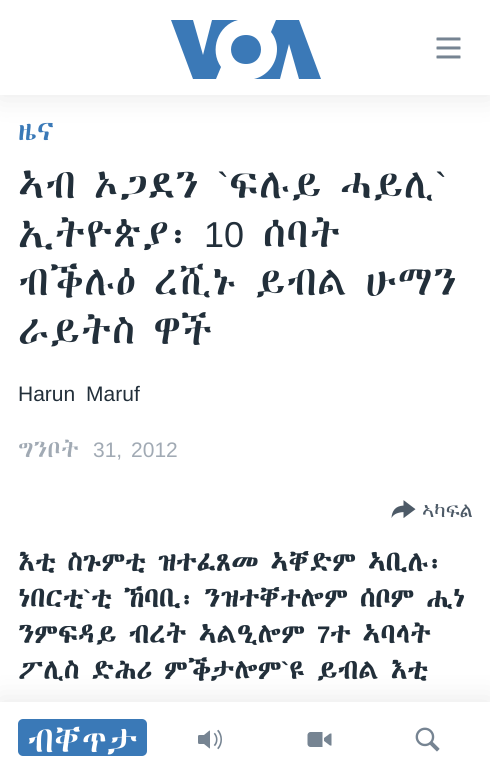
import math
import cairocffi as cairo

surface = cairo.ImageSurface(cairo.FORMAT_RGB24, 490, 777)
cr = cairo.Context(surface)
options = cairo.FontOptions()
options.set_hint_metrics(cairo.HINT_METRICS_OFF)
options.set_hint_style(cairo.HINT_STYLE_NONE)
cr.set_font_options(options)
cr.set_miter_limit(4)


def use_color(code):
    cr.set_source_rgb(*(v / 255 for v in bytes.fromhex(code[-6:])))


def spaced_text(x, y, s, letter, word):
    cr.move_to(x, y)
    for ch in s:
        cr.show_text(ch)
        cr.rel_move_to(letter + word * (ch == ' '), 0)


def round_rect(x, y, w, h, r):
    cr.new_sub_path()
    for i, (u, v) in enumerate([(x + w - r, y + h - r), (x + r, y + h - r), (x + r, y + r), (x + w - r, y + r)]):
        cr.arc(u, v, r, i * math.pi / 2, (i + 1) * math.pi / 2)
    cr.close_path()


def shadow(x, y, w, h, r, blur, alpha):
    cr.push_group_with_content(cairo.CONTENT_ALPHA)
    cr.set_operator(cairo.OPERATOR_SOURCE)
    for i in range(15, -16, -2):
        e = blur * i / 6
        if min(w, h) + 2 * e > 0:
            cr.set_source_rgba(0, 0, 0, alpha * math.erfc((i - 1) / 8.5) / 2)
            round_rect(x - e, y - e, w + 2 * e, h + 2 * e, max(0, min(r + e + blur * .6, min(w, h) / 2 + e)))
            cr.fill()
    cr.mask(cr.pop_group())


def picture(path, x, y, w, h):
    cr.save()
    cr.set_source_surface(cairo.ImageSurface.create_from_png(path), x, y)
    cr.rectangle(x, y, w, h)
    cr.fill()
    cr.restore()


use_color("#ffffff")
cr.paint()
cr.select_font_face("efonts")
cr.set_font_size(24)
use_color("#3a79b7")
cr.move_to(18, 140)
cr.show_text("ዜና")
cr.set_font_size(36)
use_color("#222f3a")
cr.move_to(18, 198)
cr.show_text("ኣብ ኦጋደን")
cr.select_font_face("Liberation Sans")
cr.move_to(217, 198)
cr.show_text("`")
cr.select_font_face("efonts")
cr.move_to(229, 198)
cr.show_text("ፍሉይ ሓይሊ")
cr.select_font_face("Liberation Sans")
cr.move_to(435, 198)
cr.show_text("`")
cr.select_font_face("efonts")
cr.move_to(18, 247)
cr.show_text("ኢትዮጵያ፡")
cr.select_font_face("Liberation Sans")
cr.move_to(204, 247)
cr.show_text("10")
cr.select_font_face("efonts")
cr.move_to(263, 247)
cr.show_text("ሰባት")
cr.move_to(18, 295)
cr.show_text("ብቕሉዕ ረሺኑ ይብል ሁማን")
cr.move_to(18, 344)
cr.show_text("ራይትስ ዋች")
cr.select_font_face("Liberation Sans")
cr.set_font_size(21)
spaced_text(18, 401, "Harun Maruf", 0, 5)
cr.select_font_face("efonts")
use_color("#a1aab4")
cr.move_to(18, 457)
cr.show_text("ግንቦት")
cr.select_font_face("Liberation Sans")
spaced_text(93, 457, "31, 2012", 0, 3)
picture("img1.png", 391, 500, 25, 18)
cr.select_font_face("FreeSerif")
use_color("#4d5a67")
cr.move_to(422, 517)
cr.show_text("ኣካፍል")
cr.select_font_face("efonts", cairo.FONT_SLANT_NORMAL, cairo.FONT_WEIGHT_BOLD)
cr.set_font_size(24)
use_color("#222f3a")
cr.move_to(18, 571)
cr.show_text("እቲ ስጉምቲ ዝተፈጸመ ኣቐድም ኣቢሉ፡")
cr.move_to(18, 607)
cr.show_text("ነበርቲ")
cr.select_font_face("Liberation Sans", cairo.FONT_SLANT_NORMAL, cairo.FONT_WEIGHT_BOLD)
cr.move_to(83, 607)
cr.show_text("`")
cr.select_font_face("efonts", cairo.FONT_SLANT_NORMAL, cairo.FONT_WEIGHT_BOLD)
cr.move_to(91, 607)
cr.show_text("ቲ ኸባቢ፡ ንዝተቐተሎም ሰቦም ሒነ")
cr.move_to(18, 643)
cr.show_text("ንምፍዳይ ብረት ኣልዒሎም")
cr.select_font_face("Liberation Sans", cairo.FONT_SLANT_NORMAL, cairo.FONT_WEIGHT_BOLD)
cr.move_to(317, 643)
cr.show_text("7")
cr.select_font_face("efonts", cairo.FONT_SLANT_NORMAL, cairo.FONT_WEIGHT_BOLD)
cr.move_to(330, 643)
cr.show_text("ተ ኣባላት")
cr.move_to(18, 679)
cr.show_text("ፖሊስ ድሕሪ ምቕታሎም")
cr.select_font_face("Liberation Sans", cairo.FONT_SLANT_NORMAL, cairo.FONT_WEIGHT_BOLD)
cr.move_to(281, 679)
cr.show_text("`")
cr.select_font_face("efonts", cairo.FONT_SLANT_NORMAL, cairo.FONT_WEIGHT_BOLD)
cr.move_to(289, 679)
cr.show_text("ዩ ይብል እቲ")
use_color("#000000")
shadow(0, 0, 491, 95, 0, 15, 0.1)
use_color("#ffffff")
cr.rectangle(0, 0, 490, 95)
cr.fill()
use_color("#3b79b7")
cr.new_path()
cr.move_to(221, 67)
cr.line_to(216, 79)
cr.line_to(193, 79)
cr.line_to(171, 20)
cr.line_to(193, 20)
cr.line_to(203, 55)
cr.line_to(212, 20)
cr.line_to(238, 20)
cr.curve_to(218, 25, 209, 50, 221, 67)
cr.close_path()
cr.move_to(246, 35)
cr.curve_to(226, 35, 226, 64, 246, 64)
cr.curve_to(266, 64, 266, 35, 246, 35)
cr.close_path()
cr.move_to(277, 49)
cr.curve_to(277, 64, 267, 76, 254, 79)
cr.line_to(280, 79)
cr.line_to(289, 44)
cr.line_to(299, 79)
cr.line_to(321, 79)
cr.line_to(299, 20)
cr.line_to(276, 20)
cr.line_to(271, 32)
cr.curve_to(275, 37, 277, 43, 277, 49)
cr.close_path()
cr.fill()
picture("img2.png", 436, 37, 25, 22)
use_color("#000000")
shadow(0, 702, 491, 75, 0, 15, 0.1)
use_color("#ffffff")
cr.rectangle(0, 702, 490, 75)
cr.fill()
use_color("#3a79b7")
round_rect(18, 719, 129, 37, 5)
cr.fill()
cr.select_font_face("efonts")
cr.set_font_size(31.5)
use_color("#ffffff")
cr.move_to(27, 752)
cr.show_text("ብቐጥታ")
picture("img3.png", 198, 729, 24, 21)
picture("img4.png", 307, 732, 25, 15)
picture("img5.png", 415, 727, 25, 25)
surface.write_to_png("result.png")
